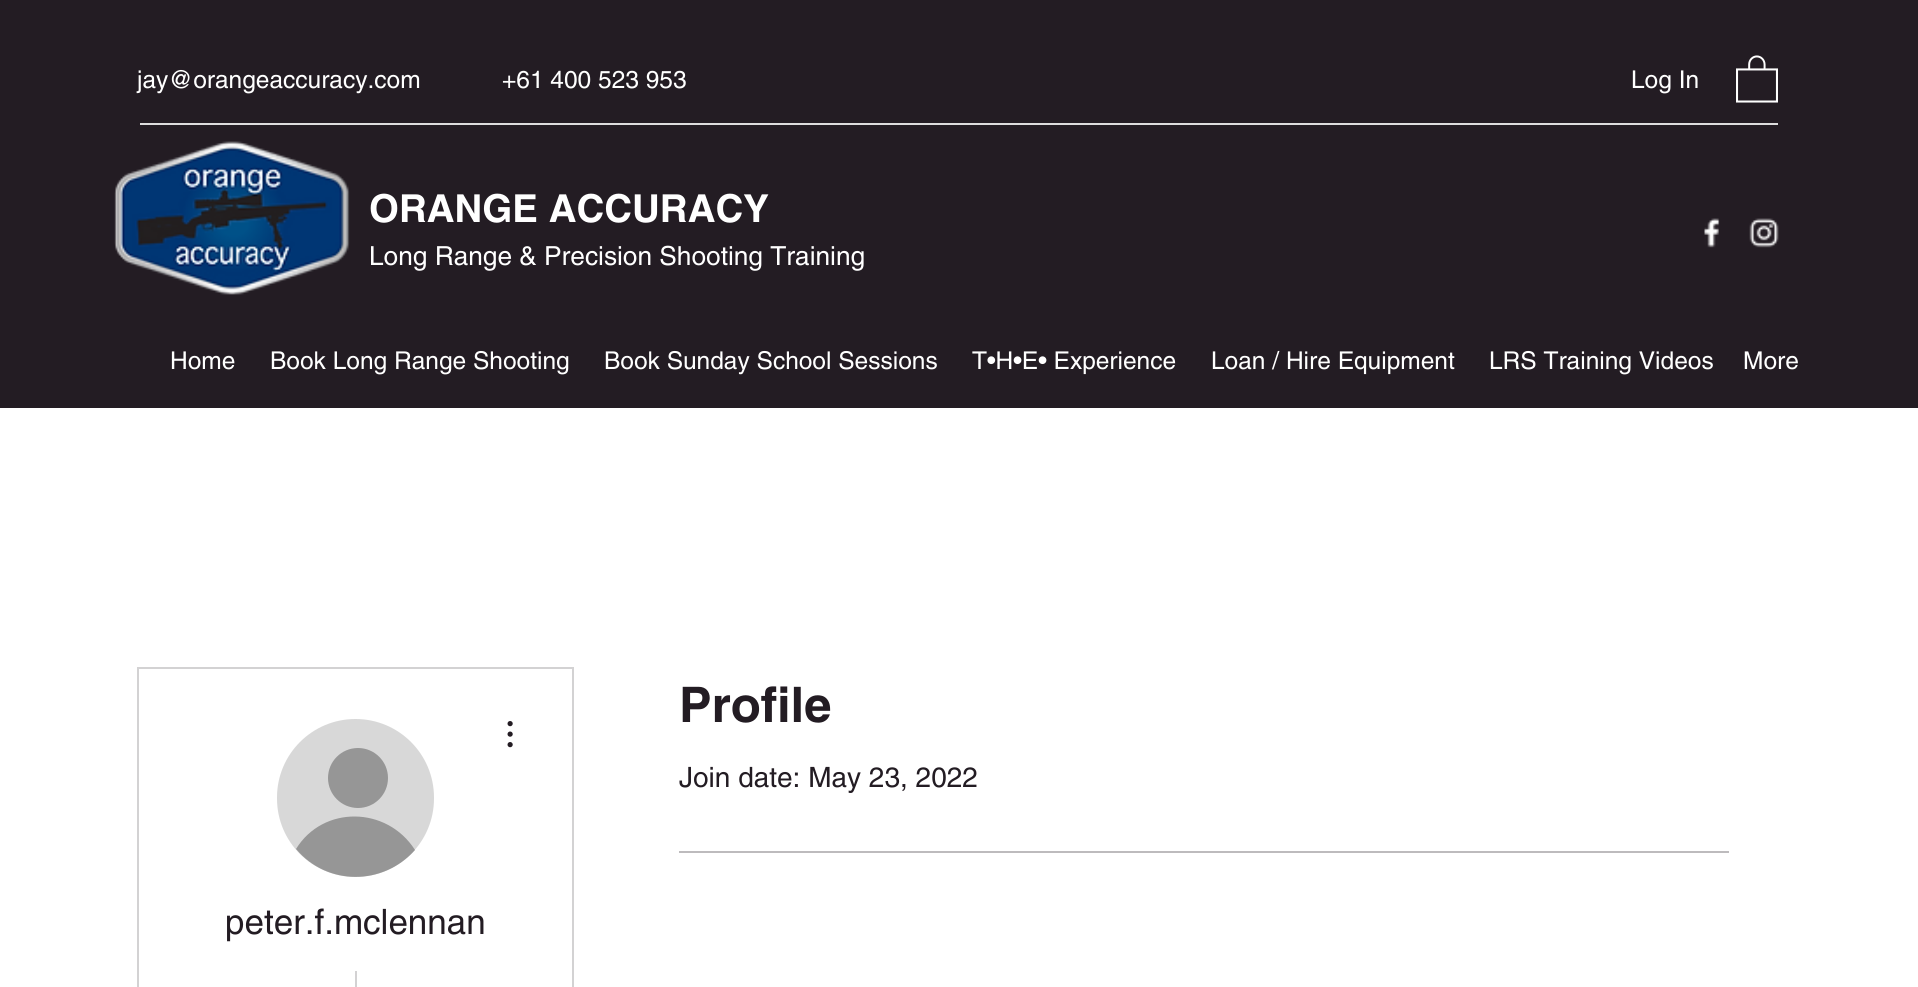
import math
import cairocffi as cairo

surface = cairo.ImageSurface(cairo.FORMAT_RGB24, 1918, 987)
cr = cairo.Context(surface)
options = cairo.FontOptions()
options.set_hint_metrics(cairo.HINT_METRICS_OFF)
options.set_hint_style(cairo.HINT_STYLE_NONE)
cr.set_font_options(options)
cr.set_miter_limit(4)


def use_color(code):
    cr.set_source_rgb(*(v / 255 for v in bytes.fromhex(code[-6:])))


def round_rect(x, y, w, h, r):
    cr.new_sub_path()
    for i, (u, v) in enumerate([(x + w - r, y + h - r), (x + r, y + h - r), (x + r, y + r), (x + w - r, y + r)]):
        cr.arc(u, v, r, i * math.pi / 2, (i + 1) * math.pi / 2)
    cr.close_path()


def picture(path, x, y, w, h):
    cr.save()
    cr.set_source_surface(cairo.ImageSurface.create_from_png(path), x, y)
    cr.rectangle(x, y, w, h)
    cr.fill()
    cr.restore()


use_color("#ffffff")
cr.paint()
use_color("#231c23")
cr.rectangle(0, 0, 1918, 408)
cr.fill()
cr.select_font_face("helvetica")
cr.set_font_size(24.5)
use_color("#ffffff")
cr.move_to(137, 88)
cr.show_text("jay@orangeaccuracy.com")
cr.move_to(502, 88)
cr.show_text("+61 400 523 953")
cr.move_to(1631, 88)
cr.show_text("Log In")
picture("img1.png", 1736, 55, 42, 48)
use_color("#deddde")
cr.rectangle(140, 123, 1638, 2)
cr.fill()
picture("img2.png", 114, 141, 236, 154)
cr.select_font_face("helvetica", cairo.FONT_SLANT_NORMAL, cairo.FONT_WEIGHT_BOLD)
cr.set_font_size(38.5)
use_color("#ffffff")
cr.move_to(369, 222)
cr.show_text("ORANGE ACCURACY")
cr.select_font_face("helvetica")
cr.set_font_size(26.25)
cr.move_to(369, 265)
cr.show_text("Long Range & Precision Shooting Training")
picture("img3.png", 1704, 218, 16, 30)
picture("img4.png", 1749, 218, 30, 30)
cr.set_font_size(24.5)
cr.move_to(170, 369)
cr.show_text("Home")
cr.move_to(270, 369)
cr.show_text("Book Long Range Shooting")
cr.move_to(604, 369)
cr.show_text("Book Sunday School Sessions")
cr.move_to(972, 369)
cr.show_text("T•H•E• Experience")
cr.move_to(1211, 369)
cr.show_text("Loan / Hire Equipment")
cr.move_to(1489, 369)
cr.show_text("LRS Training Videos")
cr.move_to(1743, 369)
cr.show_text("More")
cr.select_font_face("helvetica", cairo.FONT_SLANT_NORMAL, cairo.FONT_WEIGHT_BOLD)
cr.set_font_size(49)
use_color("#231c23")
cr.move_to(679, 722)
cr.show_text("Profile")
cr.select_font_face("helvetica")
cr.set_font_size(28)
cr.move_to(679, 787)
cr.show_text("Join date: May 23, 2022")
use_color("#bdbbbd")
cr.rectangle(679, 851, 1050, 2)
cr.fill()
cr.rectangle(138, 668, 435, 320)
use_color("#d3d2d3")
cr.stroke()
use_color("#d8d8d8")
round_rect(277, 719, 157, 158, 78.5)
cr.fill()
use_color("#969696")
cr.arc(358, 778, 30, 0, 2 * math.pi)
cr.fill()
cr.new_path()
cr.move_to(415, 850)
cr.curve_to(383, 886, 327, 886, 296, 849)
cr.curve_to(323, 805, 387, 806, 415, 850)
cr.close_path()
cr.fill()
picture("img5.png", 507, 721, 6, 27)
cr.set_font_size(35)
use_color("#231c23")
cr.move_to(225, 934)
cr.show_text("peter.f.mclennan")
use_color("#d3d2d3")
cr.rectangle(355, 971, 2, 16)
cr.fill()
surface.write_to_png("result.png")
